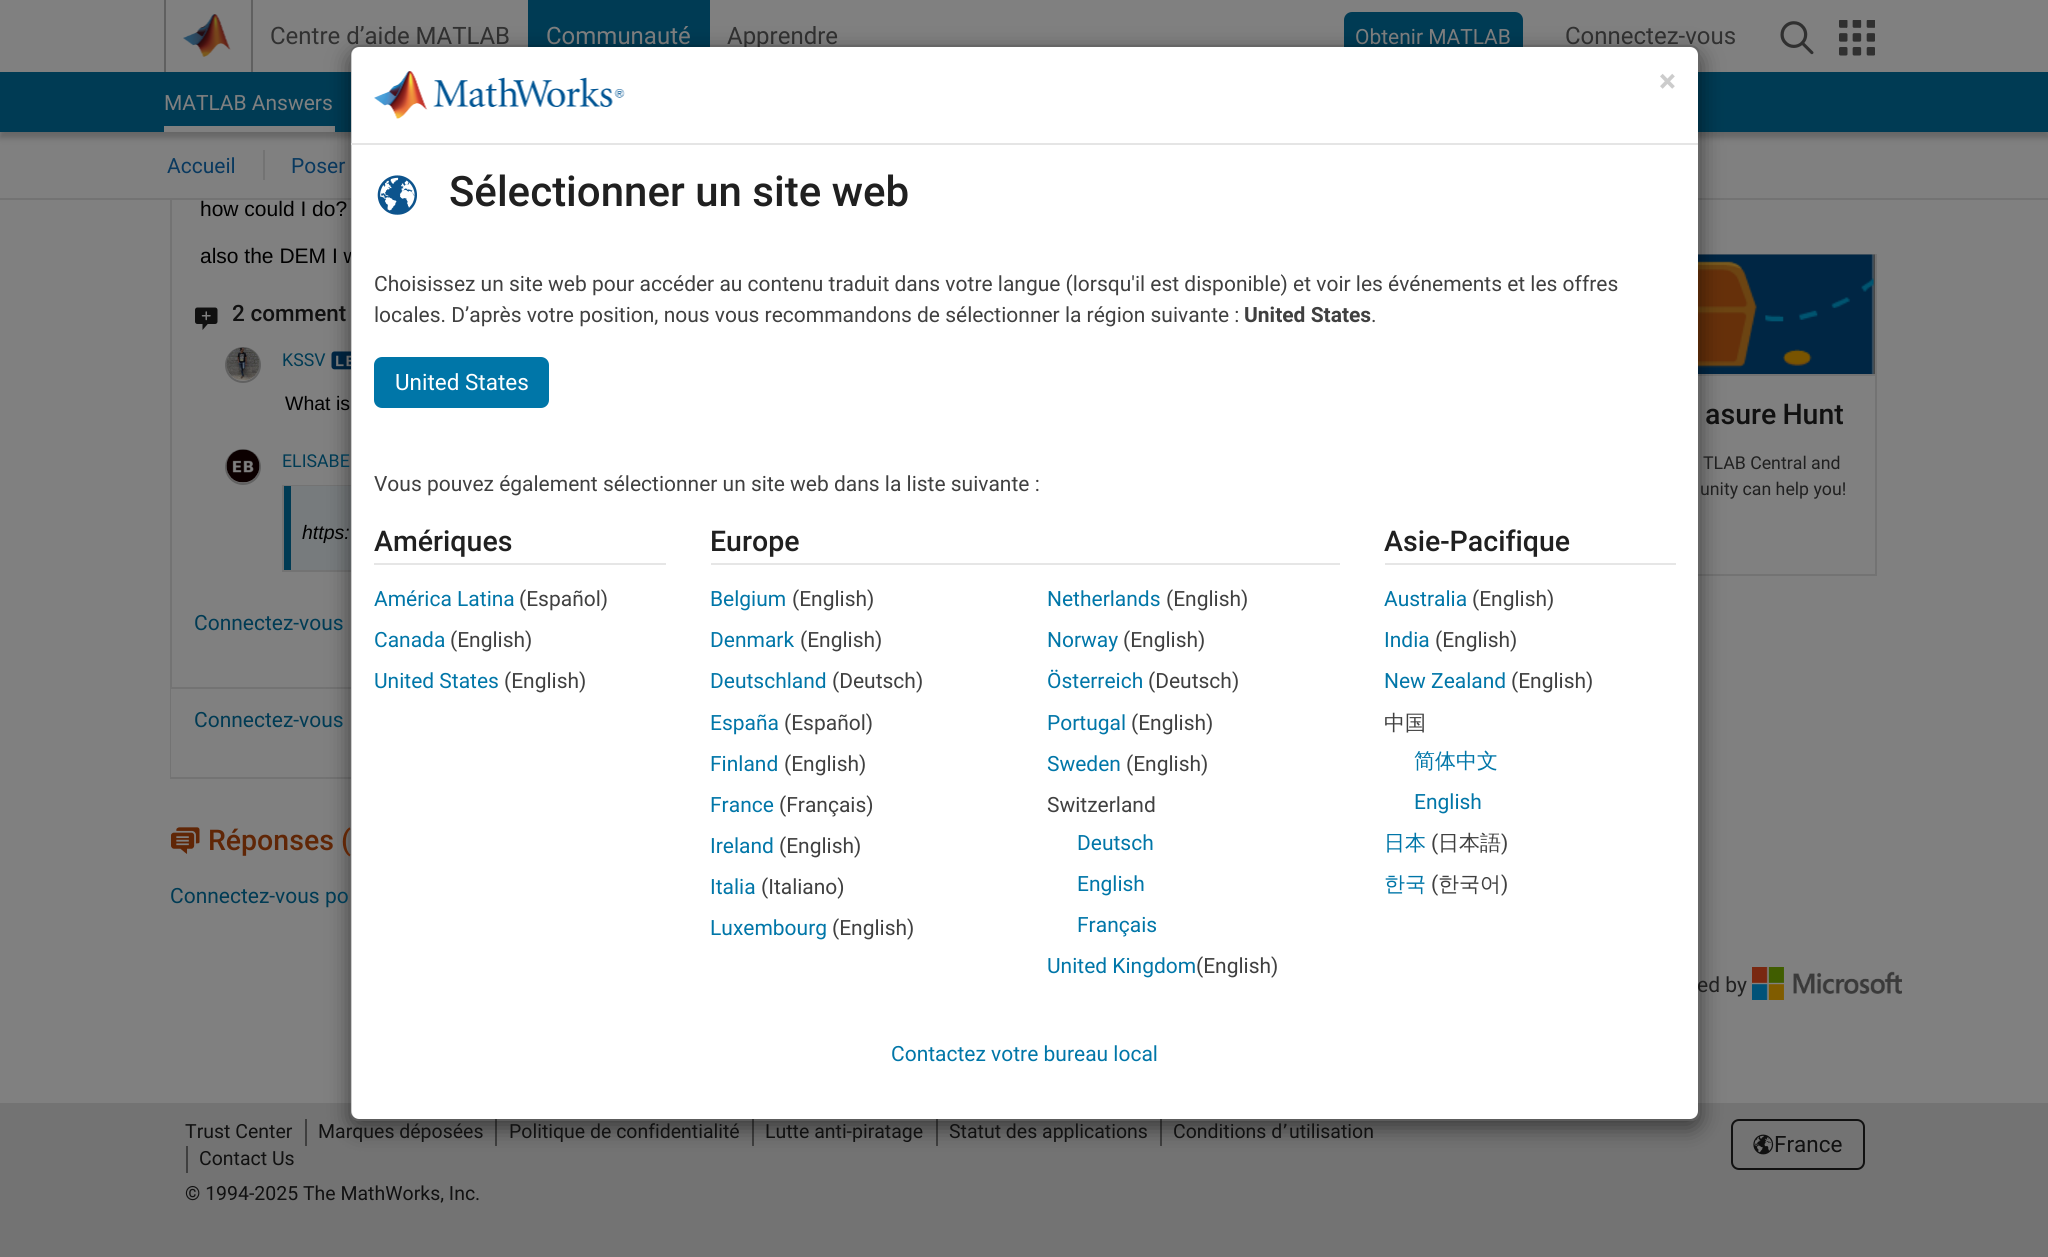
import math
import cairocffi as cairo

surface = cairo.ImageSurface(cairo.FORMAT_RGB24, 2048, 1257)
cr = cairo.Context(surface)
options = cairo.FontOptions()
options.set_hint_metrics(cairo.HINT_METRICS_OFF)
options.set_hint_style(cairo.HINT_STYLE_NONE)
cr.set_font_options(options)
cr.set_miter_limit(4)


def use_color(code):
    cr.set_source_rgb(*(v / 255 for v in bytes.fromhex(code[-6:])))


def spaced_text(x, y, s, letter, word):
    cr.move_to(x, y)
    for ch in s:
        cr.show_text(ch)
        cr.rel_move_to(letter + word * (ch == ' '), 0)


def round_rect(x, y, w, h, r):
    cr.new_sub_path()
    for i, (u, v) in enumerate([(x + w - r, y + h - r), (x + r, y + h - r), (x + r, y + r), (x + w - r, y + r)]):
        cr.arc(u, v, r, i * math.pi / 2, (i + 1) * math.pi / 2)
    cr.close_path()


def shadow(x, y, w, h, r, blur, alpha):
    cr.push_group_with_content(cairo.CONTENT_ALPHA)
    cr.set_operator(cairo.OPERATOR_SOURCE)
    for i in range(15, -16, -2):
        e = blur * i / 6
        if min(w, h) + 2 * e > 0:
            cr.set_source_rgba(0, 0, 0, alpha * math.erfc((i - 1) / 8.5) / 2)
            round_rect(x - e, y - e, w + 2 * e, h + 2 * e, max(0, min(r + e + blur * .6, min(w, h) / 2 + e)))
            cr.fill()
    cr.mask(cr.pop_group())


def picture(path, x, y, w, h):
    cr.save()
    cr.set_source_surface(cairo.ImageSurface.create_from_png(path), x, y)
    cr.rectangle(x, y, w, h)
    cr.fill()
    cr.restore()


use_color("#737373")
cr.paint()
use_color("#808080")
cr.rectangle(0, 200, 2048, 903)
cr.fill()
cr.rectangle(171, -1, 1270, 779)
use_color("#737373")
cr.stroke()
use_color("#808080")
cr.rectangle(0, 0, 2048, 72)
cr.fill()
use_color("#606060")
cr.rectangle(251, 0, 2, 72)
cr.fill()
cr.rectangle(164, 0, 2, 72)
cr.fill()
picture("img1.png", 183, 14, 48, 43)
cr.select_font_face("Roboto")
cr.set_font_size(24)
use_color("#313131")
cr.move_to(270, 44)
cr.show_text("Centre d’aide MATLAB")
use_color("#003b54")
cr.rectangle(528, 0, 182, 47)
cr.fill()
use_color("#808080")
cr.move_to(546, 44)
cr.show_text("Communauté")
use_color("#313131")
cr.move_to(727, 44)
cr.show_text("Apprendre")
use_color("#003b54")
round_rect(1345, 13, 177, 46, 7)
cr.fill_preserve()
cr.stroke()
cr.set_font_size(21)
use_color("#808080")
cr.move_to(1355, 44)
cr.show_text("Obtenir MATLAB")
cr.set_font_size(24)
use_color("#313131")
cr.move_to(1565, 44)
cr.show_text("Connectez-vous")
picture("img2.png", 1780, 21, 34, 34)
picture("img3.png", 1839, 20, 36, 36)
use_color("#808080")
cr.rectangle(0, 132, 2048, 66)
cr.fill()
use_color("#000000")
shadow(0, 78, 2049, 60, 0, 3, 0.2)
use_color("#003b54")
cr.rectangle(0, 72, 2048, 60)
cr.fill()
use_color("#808080")
cr.rectangle(164, 126, 171, 6)
cr.fill()
cr.set_font_size(21)
cr.move_to(164, 110)
cr.show_text("MATLAB Answers")
use_color("#09395f")
cr.move_to(167, 173)
cr.show_text("Accueil")
use_color("#737373")
cr.rectangle(263, 150, 2, 30)
cr.fill()
use_color("#09395f")
cr.move_to(291, 173)
cr.show_text("Poser")
picture("img8.png", 331, 351, 20, 19)
cr.rectangle(283, 486, 1134, 85)
use_color("#737373")
cr.stroke()
use_color("#777b7d")
cr.rectangle(291, 486, 60, 84)
cr.fill()
use_color("#737373")
cr.rectangle(171, 687, 180, 2)
cr.fill()
cr.rectangle(1488, 255, 388, 320)
cr.stroke()
picture("img11.png", 1698, 254, 177, 120)
cr.rectangle(1698, 374, 177, 2)
cr.fill()
use_color("#3f3f3f")
cr.rectangle(495, 1119, 2, 27)
cr.fill()
cr.rectangle(752, 1119, 2, 27)
cr.fill()
cr.rectangle(936, 1119, 2, 27)
cr.fill()
cr.rectangle(1160, 1119, 2, 27)
cr.fill()
round_rect(1732, 1120, 132, 49, 7)
use_color("#111111")
cr.stroke()
cr.save()
cr.set_fill_rule(cairo.FILL_RULE_EVEN_ODD)
cr.new_path()
cr.move_to(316, 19)
cr.line_to(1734, 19)
cr.line_to(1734, 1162)
cr.line_to(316, 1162)
cr.close_path()
cr.move_to(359, 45)
cr.line_to(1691, 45)
cr.curve_to(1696, 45, 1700, 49, 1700, 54)
cr.line_to(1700, 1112)
cr.curve_to(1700, 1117, 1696, 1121, 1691, 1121)
cr.line_to(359, 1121)
cr.curve_to(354, 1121, 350, 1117, 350, 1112)
cr.line_to(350, 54)
cr.curve_to(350, 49, 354, 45, 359, 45)
cr.close_path()
cr.clip()
use_color("#000000")
shadow(350, 53, 1350, 1075, 9, 11, 0.5)
cr.restore()
cr.select_font_face("Liberation Sans")
use_color("#000000")
cr.move_to(200, 263)
cr.show_text("also the DEM I w")
cr.select_font_face("Roboto")
use_color("#202020")
cr.move_to(1697, 992)
cr.show_text("ed by")
use_color("#ffffff")
round_rect(351, 47, 1347, 1072, 8)
cr.fill()
cr.select_font_face("Roboto Medium")
cr.set_font_size(28.5)
use_color("#602606")
cr.move_to(208, 850)
cr.show_text("Réponses (")
round_rect(351, 46, 1348, 1074, 8)
cr.set_source_rgba(0, 0, 0, 0.2)
cr.stroke()
use_color("#e5e5e5")
cr.rectangle(351, 143, 1347, 2)
cr.fill()
picture("img4.png", 374, 71, 251, 48)
cr.select_font_face("Roboto", cairo.FONT_SLANT_NORMAL, cairo.FONT_WEIGHT_BOLD)
cr.set_font_size(32)
use_color("#cccccc")
cr.move_to(1659, 92)
cr.show_text("×")
picture("img5.png", 377, 175, 40, 40)
cr.select_font_face("Roboto Medium")
cr.set_font_size(42)
use_color("#202020")
cr.move_to(449, 206)
cr.show_text("Sélectionner un site web")
cr.select_font_face("Roboto")
cr.set_font_size(21)
use_color("#404040")
cr.move_to(374, 291)
cr.show_text("Choisissez un site web pour accéder au contenu traduit dans votre langue (lorsqu'il est disponible) et voir les événements et les offres")
cr.move_to(374, 322)
cr.show_text("locales. D’après votre position, nous vous recommandons de sélectionner la région suivante :")
cr.select_font_face("Roboto", cairo.FONT_SLANT_NORMAL, cairo.FONT_WEIGHT_BOLD)
cr.move_to(1244, 322)
cr.show_text("United States")
cr.select_font_face("Roboto")
cr.move_to(1371, 322)
cr.show_text(".")
use_color("#0076a8")
round_rect(374, 357, 175, 51, 8)
cr.fill()
cr.set_font_size(22.5)
use_color("#ffffff")
cr.move_to(395, 390)
cr.show_text("United States")
cr.set_font_size(21)
use_color("#404040")
cr.move_to(374, 491)
cr.show_text("Vous pouvez également sélectionner un site web dans la liste suivante :")
use_color("#e6e6e6")
cr.rectangle(374, 563, 292, 2)
cr.fill()
cr.select_font_face("Roboto Medium")
cr.set_font_size(28.5)
use_color("#202020")
cr.move_to(374, 551)
cr.show_text("Amériques")
cr.select_font_face("Roboto")
cr.set_font_size(21)
use_color("#0076a8")
cr.move_to(374, 606)
cr.show_text("América Latina")
use_color("#404040")
cr.move_to(519, 606)
cr.show_text("(Español)")
use_color("#0076a8")
cr.move_to(374, 647)
cr.show_text("Canada")
use_color("#404040")
cr.move_to(450, 647)
cr.show_text("(English)")
use_color("#0076a8")
cr.move_to(374, 688)
cr.show_text("United States")
use_color("#404040")
cr.move_to(504, 688)
cr.show_text("(English)")
use_color("#e6e6e6")
cr.rectangle(711, 563, 629, 2)
cr.fill()
cr.select_font_face("Roboto Medium")
cr.set_font_size(28.5)
use_color("#202020")
cr.move_to(710, 551)
cr.show_text("Europe")
cr.select_font_face("Roboto")
cr.set_font_size(21)
use_color("#0076a8")
cr.move_to(710, 606)
cr.show_text("Belgium")
use_color("#404040")
cr.move_to(792, 606)
cr.show_text("(English)")
use_color("#0076a8")
cr.move_to(710, 647)
cr.show_text("Denmark")
use_color("#404040")
cr.move_to(800, 647)
cr.show_text("(English)")
use_color("#0076a8")
cr.move_to(710, 688)
cr.show_text("Deutschland")
use_color("#404040")
cr.move_to(832, 688)
cr.show_text("(Deutsch)")
use_color("#0076a8")
cr.move_to(710, 730)
cr.show_text("España")
use_color("#404040")
cr.move_to(784, 730)
cr.show_text("(Español)")
use_color("#0076a8")
cr.move_to(710, 771)
cr.show_text("Finland")
use_color("#404040")
cr.move_to(784, 771)
cr.show_text("(English)")
use_color("#0076a8")
cr.move_to(710, 812)
cr.show_text("France")
use_color("#404040")
cr.move_to(779, 812)
cr.show_text("(Français)")
use_color("#0076a8")
cr.move_to(710, 853)
cr.show_text("Ireland")
use_color("#404040")
cr.move_to(779, 853)
cr.show_text("(English)")
use_color("#0076a8")
cr.move_to(710, 894)
cr.show_text("Italia")
use_color("#404040")
cr.move_to(761, 894)
cr.show_text("(Italiano)")
use_color("#0076a8")
cr.move_to(710, 935)
cr.show_text("Luxembourg")
use_color("#404040")
cr.move_to(832, 935)
cr.show_text("(English)")
use_color("#0076a8")
cr.move_to(1047, 606)
cr.show_text("Netherlands")
use_color("#404040")
cr.move_to(1166, 606)
cr.show_text("(English)")
use_color("#0076a8")
cr.move_to(1047, 647)
cr.show_text("Norway")
use_color("#404040")
cr.move_to(1123, 647)
cr.show_text("(English)")
use_color("#0076a8")
cr.move_to(1047, 688)
cr.show_text("Österreich")
use_color("#404040")
cr.move_to(1148, 688)
cr.show_text("(Deutsch)")
use_color("#0076a8")
cr.move_to(1047, 730)
cr.show_text("Portugal")
use_color("#404040")
cr.move_to(1131, 730)
cr.show_text("(English)")
use_color("#0076a8")
cr.move_to(1047, 771)
cr.show_text("Sweden")
use_color("#404040")
cr.move_to(1126, 771)
cr.show_text("(English)")
cr.move_to(1047, 812)
cr.show_text("Switzerland")
use_color("#0076a8")
cr.move_to(1077, 850)
cr.show_text("Deutsch")
cr.move_to(1077, 891)
cr.show_text("English")
cr.move_to(1077, 932)
cr.show_text("Français")
cr.move_to(1047, 973)
cr.show_text("United Kingdom")
use_color("#404040")
cr.move_to(1196, 973)
cr.show_text("(English)")
use_color("#e6e6e6")
cr.rectangle(1385, 563, 291, 2)
cr.fill()
cr.select_font_face("Roboto Medium")
cr.set_font_size(28.5)
use_color("#202020")
cr.move_to(1384, 551)
cr.show_text("Asie-Pacifique")
cr.select_font_face("Roboto")
cr.set_font_size(21)
use_color("#0076a8")
cr.move_to(1384, 606)
cr.show_text("Australia")
use_color("#404040")
cr.move_to(1472, 606)
cr.show_text("(English)")
use_color("#0076a8")
cr.move_to(1384, 647)
cr.show_text("India")
use_color("#404040")
cr.move_to(1435, 647)
cr.show_text("(English)")
use_color("#0076a8")
cr.move_to(1384, 688)
cr.show_text("New Zealand")
use_color("#404040")
cr.move_to(1511, 688)
cr.show_text("(English)")
cr.select_font_face("WenQuanYi Zen Hei Medium")
cr.move_to(1384, 730)
cr.show_text("中国")
use_color("#0076a8")
cr.move_to(1414, 768)
cr.show_text("简体中文")
cr.select_font_face("Roboto")
cr.move_to(1414, 809)
cr.show_text("English")
cr.select_font_face("WenQuanYi Zen Hei Medium")
cr.move_to(1384, 850)
cr.show_text("日本")
cr.select_font_face("Roboto")
use_color("#404040")
cr.move_to(1431, 850)
cr.show_text("(")
cr.select_font_face("WenQuanYi Zen Hei Medium")
cr.move_to(1438, 850)
cr.show_text("日本語")
cr.select_font_face("Roboto")
cr.move_to(1501, 850)
cr.show_text(")")
cr.select_font_face("WenQuanYi Zen Hei Medium")
use_color("#0076a8")
cr.move_to(1384, 891)
cr.show_text("한국")
cr.select_font_face("Roboto")
use_color("#404040")
cr.move_to(1431, 891)
cr.show_text("(")
cr.select_font_face("WenQuanYi Zen Hei Medium")
cr.move_to(1438, 891)
cr.show_text("한국어")
cr.select_font_face("Roboto")
cr.move_to(1501, 891)
cr.show_text(")")
use_color("#0076a8")
cr.move_to(891, 1061)
cr.show_text("Contactez votre bureau local")
cr.select_font_face("Liberation Sans")
use_color("#000000")
cr.move_to(200, 216)
cr.show_text("how could I do?")
picture("img6.png", 195, 307, 23, 23)
cr.select_font_face("Roboto Medium")
cr.set_font_size(22.5)
use_color("#111111")
cr.move_to(232, 321)
cr.show_text("2 comment")
cr.new_path()
cr.arc(243, 365, 17, 0, 2 * math.pi)
use_color("#616161")
cr.stroke()
picture("img7.png", 226, 347, 34, 34)
cr.select_font_face("Roboto")
cr.set_font_size(17.75)
use_color("#003b54")
cr.move_to(282, 366)
cr.show_text("KSSV")
cr.select_font_face("Liberation Sans")
cr.set_font_size(19.5)
use_color("#000000")
cr.move_to(285, 410)
cr.show_text("What is")
cr.new_path()
cr.arc(243, 467, 17, 0, 2 * math.pi)
use_color("#616161")
cr.stroke()
picture("img9.png", 226, 449, 34, 34)
cr.select_font_face("Roboto")
cr.set_font_size(17.75)
use_color("#003b54")
cr.move_to(282, 467)
cr.show_text("ELISABE")
cr.rectangle(284, 486, 7, 84)
cr.fill()
cr.select_font_face("Liberation Sans", cairo.FONT_SLANT_ITALIC)
cr.set_font_size(19.5)
use_color("#000000")
cr.move_to(302, 539)
cr.show_text("https:")
cr.select_font_face("Roboto")
cr.set_font_size(21)
use_color("#003b54")
cr.move_to(194, 630)
cr.show_text("Connectez-vous")
use_color("#808080")
cr.rectangle(171, 689, 1, 88)
cr.fill()
use_color("#003b54")
cr.move_to(194, 727)
cr.show_text("Connectez-vous")
picture("img10.png", 171, 827, 29, 27)
cr.move_to(170, 903)
cr.show_text("Connectez-vous po")
cr.select_font_face("Roboto Medium")
cr.set_font_size(28.5)
use_color("#111111")
spaced_text(1705, 424, "asure Hunt", 0, -1)
cr.select_font_face("Roboto")
cr.set_font_size(17.75)
use_color("#202020")
cr.move_to(1703, 469)
cr.show_text("TLAB Central and")
cr.move_to(1700, 495)
cr.show_text("unity can help you!")
picture("img12.png", 1752, 967, 150, 33)
cr.set_font_size(19.5)
use_color("#111111")
cr.move_to(185, 1138)
cr.show_text("Trust Center")
use_color("#3f3f3f")
cr.rectangle(305, 1119, 2, 27)
cr.fill()
use_color("#111111")
cr.move_to(318, 1138)
cr.show_text("Marques déposées")
cr.move_to(509, 1138)
cr.show_text("Politique de confidentialité")
cr.move_to(765, 1138)
cr.show_text("Lutte anti-piratage")
cr.move_to(949, 1138)
cr.show_text("Statut des applications")
cr.move_to(1173, 1138)
cr.show_text("Conditions d")
cr.select_font_face("DejaVu Sans")
cr.move_to(1282, 1138)
cr.show_text("՚")
cr.select_font_face("Roboto")
cr.move_to(1289, 1138)
cr.show_text("utilisation")
use_color("#3f3f3f")
cr.rectangle(186, 1146, 2, 27)
cr.fill()
use_color("#111111")
cr.move_to(199, 1165)
cr.show_text("Contact Us")
cr.move_to(185, 1200)
cr.show_text("© 1994-2025 The MathWorks, Inc.")
picture("img13.png", 1753, 1134, 21, 21)
cr.set_font_size(22.5)
cr.move_to(1774, 1152)
cr.show_text("France")
surface.write_to_png("result.png")
